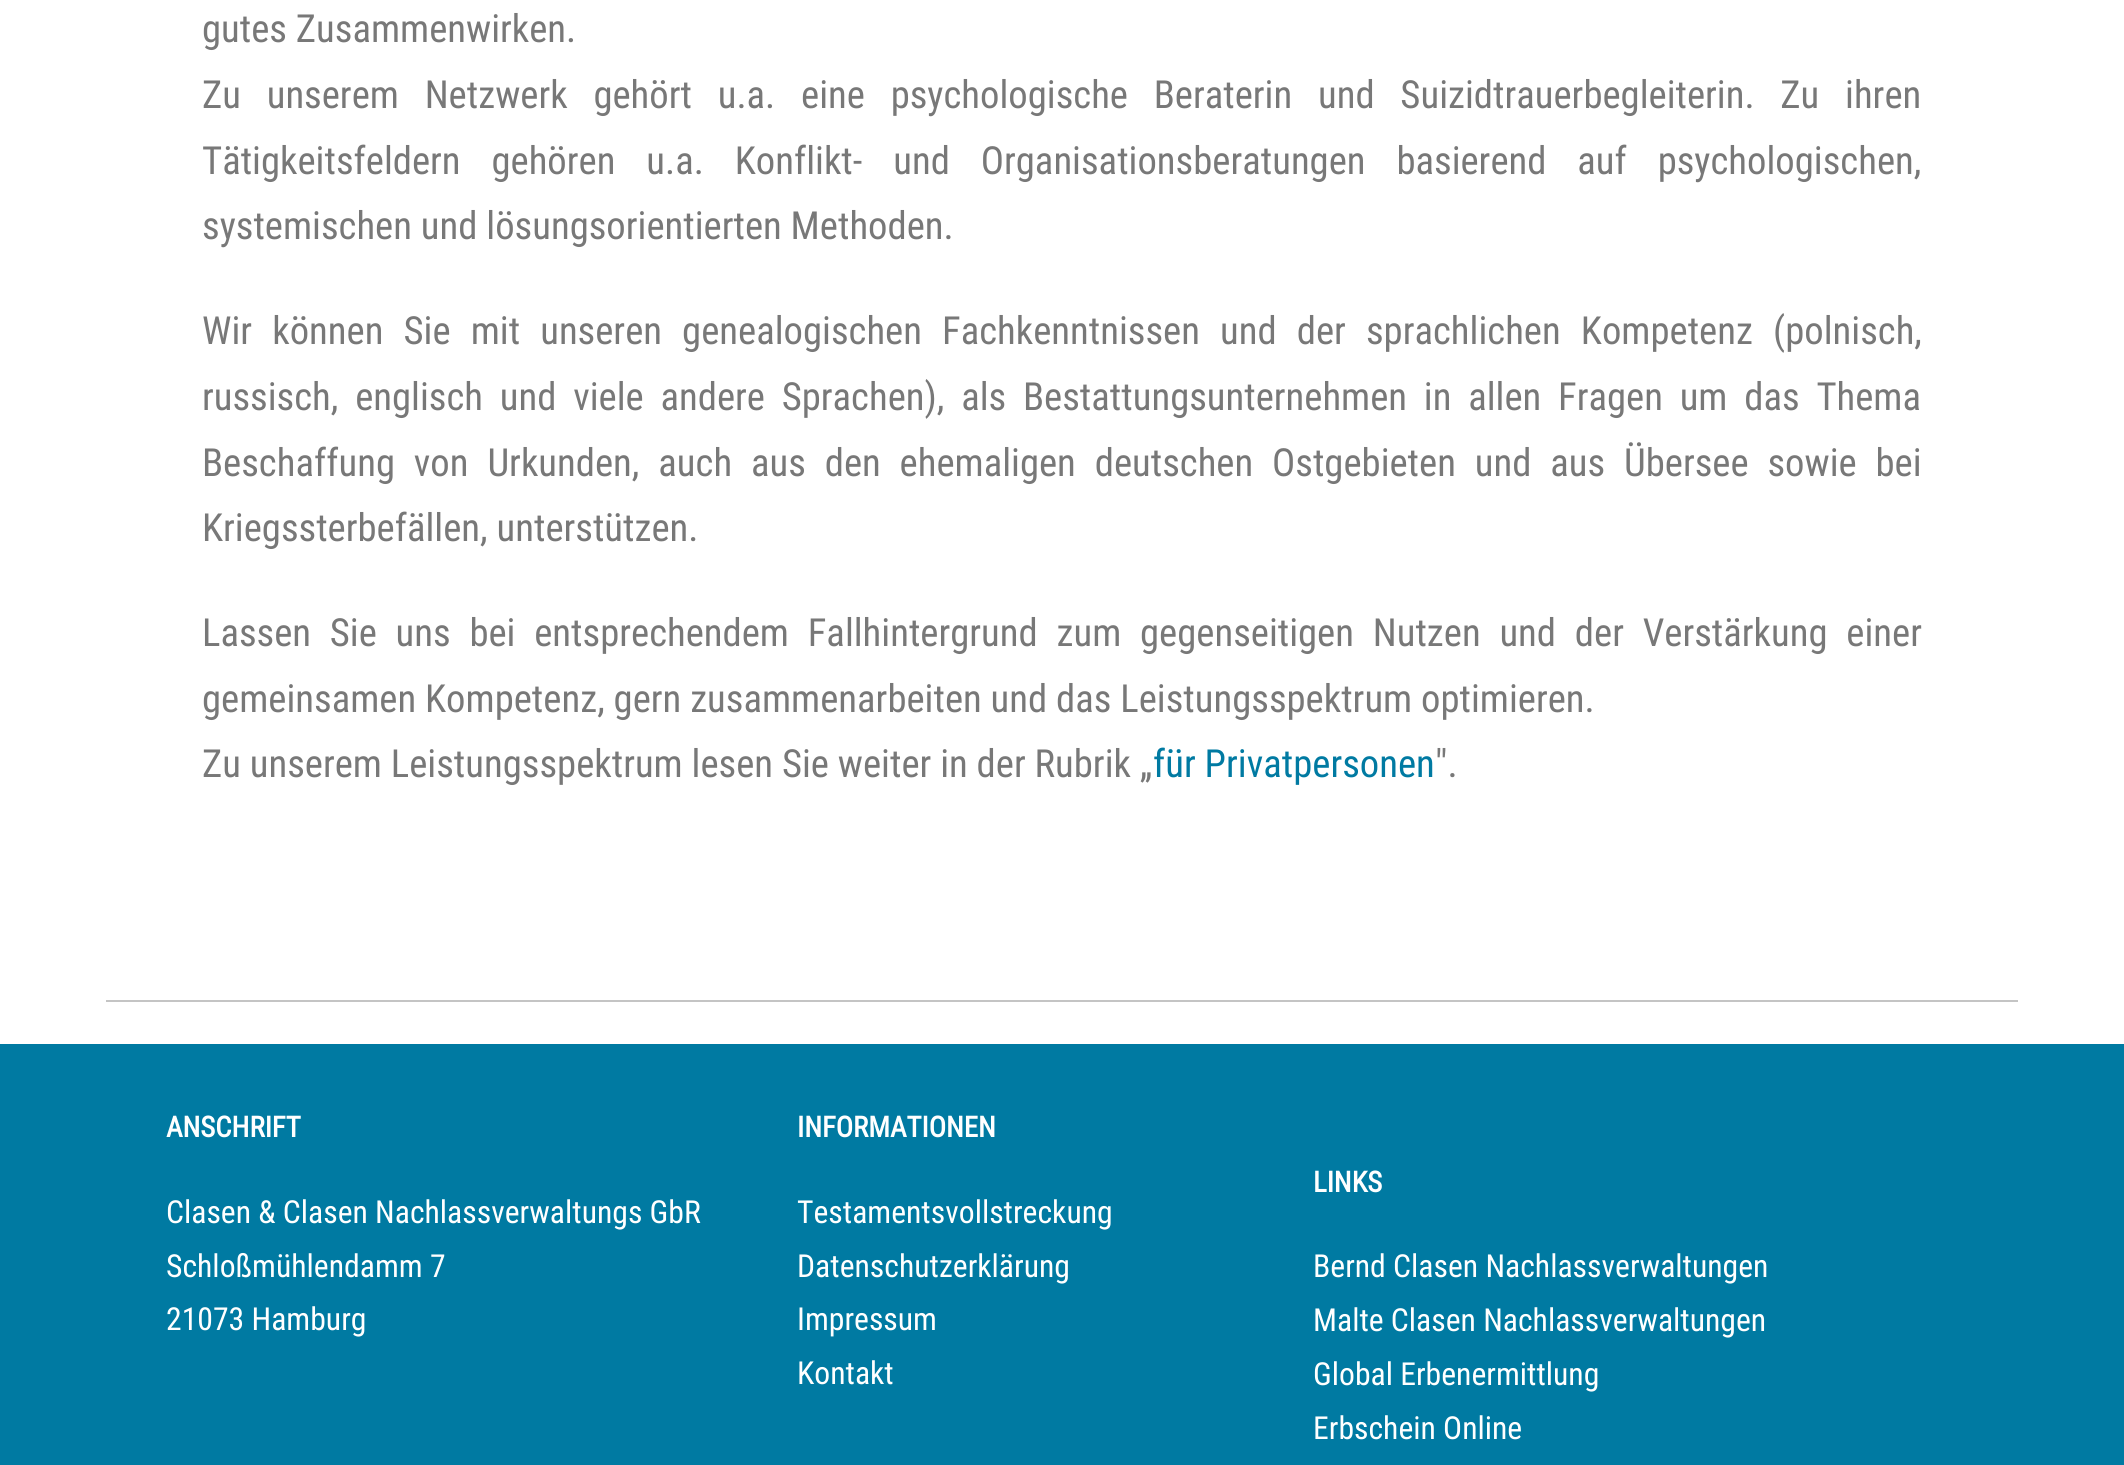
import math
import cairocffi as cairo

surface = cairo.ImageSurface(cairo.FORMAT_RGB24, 2124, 1465)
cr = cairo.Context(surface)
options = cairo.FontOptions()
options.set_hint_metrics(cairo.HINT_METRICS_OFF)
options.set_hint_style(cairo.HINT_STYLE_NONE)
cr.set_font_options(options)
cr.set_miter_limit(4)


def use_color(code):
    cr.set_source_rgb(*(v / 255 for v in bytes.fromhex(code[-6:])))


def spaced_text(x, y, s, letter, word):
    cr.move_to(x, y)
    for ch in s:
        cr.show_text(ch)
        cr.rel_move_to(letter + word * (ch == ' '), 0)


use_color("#ffffff")
cr.paint()
cr.select_font_face("Roboto Condensed")
cr.set_font_size(38.7)
use_color("#787878")
cr.move_to(202, 42)
cr.show_text("gutes Zusammenwirken.")
spaced_text(202, 108, "Zu unserem Netzwerk gehört u.a. eine psychologische Beraterin und Suizidtrauerbegleiterin. Zu ihren", 0, 16.9)
spaced_text(202, 174, "Tätigkeitsfeldern gehören u.a. Konflikt- und Organisationsberatungen basierend auf psychologischen,", 0, 22)
cr.move_to(202, 239)
cr.show_text("systemischen und lösungsorientierten Methoden.")
spaced_text(202, 344, "Wir können Sie mit unseren genealogischen Fachkenntnissen und der sprachlichen Kompetenz (polnisch,", 0, 11.25)
spaced_text(202, 410, "russisch, englisch und viele andere Sprachen), als Bestattungsunternehmen in allen Fragen um das Thema", 0, 7.9)
spaced_text(202, 476, "Beschaffung von Urkunden, auch aus den ehemaligen deutschen Ostgebieten und aus Übersee sowie bei", 0, 10)
cr.move_to(202, 541)
cr.show_text("Kriegssterbefällen, unterstützen.")
spaced_text(202, 646, "Lassen Sie uns bei entsprechendem Fallhintergrund zum gegenseitigen Nutzen und der Verstärkung einer", 0, 9.9)
cr.move_to(202, 712)
cr.show_text("gemeinsamen Kompetenz, gern zusammenarbeiten und das Leistungsspektrum optimieren.")
cr.move_to(202, 777)
cr.show_text("Zu unserem Leistungsspektrum lesen Sie weiter in der Rubrik „")
use_color("#007aa2")
cr.move_to(1153, 777)
cr.show_text("für Privatpersonen")
use_color("#787878")
cr.move_to(1435, 777)
cr.show_text("\".")
use_color("#c4c4c4")
cr.rectangle(106, 1000, 1912, 2)
cr.fill()
use_color("#007aa2")
cr.rectangle(0, 1044, 2124, 421)
cr.fill()
cr.select_font_face("Roboto Condensed", cairo.FONT_SLANT_NORMAL, cairo.FONT_WEIGHT_BOLD)
cr.set_font_size(28.75)
use_color("#ffffff")
cr.move_to(166, 1137)
cr.show_text("ANSCHRIFT")
cr.select_font_face("Roboto Condensed")
cr.set_font_size(31.7)
cr.move_to(166, 1223)
cr.show_text("Clasen & Clasen Nachlassverwaltungs GbR")
cr.move_to(166, 1277)
cr.show_text("Schloßmühlendamm 7")
cr.move_to(166, 1330)
cr.show_text("21073 Hamburg")
cr.select_font_face("Roboto Condensed", cairo.FONT_SLANT_NORMAL, cairo.FONT_WEIGHT_BOLD)
cr.set_font_size(28.75)
cr.move_to(797, 1137)
cr.show_text("INFORMATIONEN")
cr.select_font_face("Roboto Condensed")
cr.set_font_size(31.7)
cr.move_to(797, 1223)
cr.show_text("Testamentsvollstreckung")
cr.move_to(797, 1277)
cr.show_text("Datenschutzerklärung")
cr.move_to(797, 1330)
cr.show_text("Impressum")
cr.move_to(797, 1384)
cr.show_text("Kontakt")
cr.select_font_face("Roboto Condensed", cairo.FONT_SLANT_NORMAL, cairo.FONT_WEIGHT_BOLD)
cr.set_font_size(28.75)
cr.move_to(1313, 1192)
cr.show_text("LINKS")
cr.select_font_face("Roboto Condensed")
cr.set_font_size(31.7)
cr.move_to(1313, 1277)
cr.show_text("Bernd Clasen Nachlassverwaltungen")
cr.move_to(1313, 1331)
cr.show_text("Malte Clasen Nachlassverwaltungen")
cr.move_to(1313, 1385)
cr.show_text("Global Erbenermittlung")
cr.move_to(1313, 1439)
cr.show_text("Erbschein Online")
surface.write_to_png("result.png")
